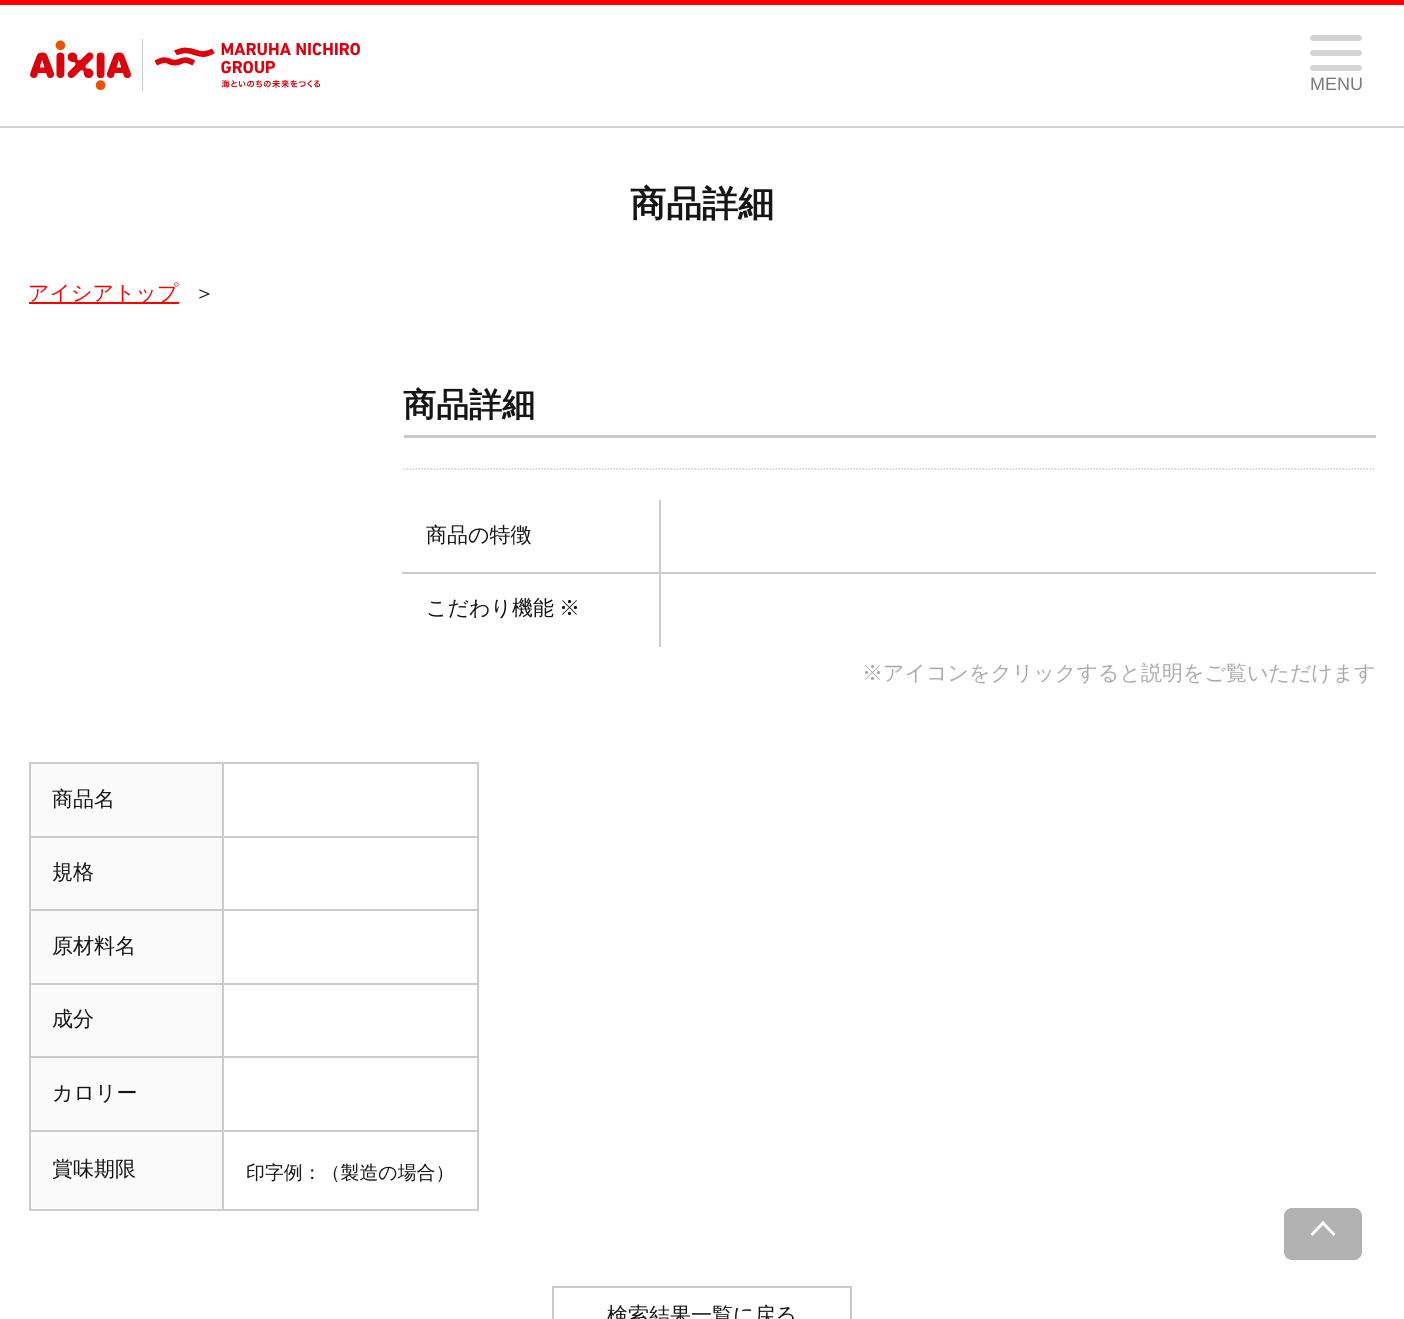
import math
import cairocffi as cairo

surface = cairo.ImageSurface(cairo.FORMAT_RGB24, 1404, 1319)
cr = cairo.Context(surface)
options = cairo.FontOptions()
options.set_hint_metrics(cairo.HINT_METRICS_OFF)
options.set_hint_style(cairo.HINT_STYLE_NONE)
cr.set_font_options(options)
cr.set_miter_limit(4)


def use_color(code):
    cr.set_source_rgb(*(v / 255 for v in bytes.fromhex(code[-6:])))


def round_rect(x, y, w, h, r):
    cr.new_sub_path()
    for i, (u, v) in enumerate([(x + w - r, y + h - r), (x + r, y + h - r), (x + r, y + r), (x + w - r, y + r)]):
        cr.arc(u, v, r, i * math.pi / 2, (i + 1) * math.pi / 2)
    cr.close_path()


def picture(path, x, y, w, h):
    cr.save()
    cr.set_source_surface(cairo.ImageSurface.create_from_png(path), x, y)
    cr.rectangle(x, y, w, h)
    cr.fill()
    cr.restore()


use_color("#ffffff")
cr.paint()
use_color("#ff0000")
cr.rectangle(0, 0, 1404, 5)
cr.fill()
use_color("#d3d3d3")
cr.rectangle(0, 126, 1404, 2)
cr.fill()
picture("img1.png", 30, 39, 330, 53)
use_color("#d4d4d4")
round_rect(1310, 35, 52, 6, 3)
cr.fill()
round_rect(1310, 50, 52, 6, 3)
cr.fill()
round_rect(1310, 65, 52, 6, 3)
cr.fill()
cr.select_font_face("Liberation Sans")
cr.set_font_size(18)
use_color("#7a7a7a")
cr.move_to(1310, 90)
cr.show_text("MENU")
cr.select_font_face("WenQuanYi Zen Hei", cairo.FONT_SLANT_NORMAL, cairo.FONT_WEIGHT_BOLD)
cr.set_font_size(36)
use_color("#151515")
cr.move_to(630, 216)
cr.show_text("商品詳細")
use_color("#ff0000")
cr.rectangle(29, 302, 150, 2)
cr.fill()
cr.select_font_face("WenQuanYi Zen Hei Medium")
cr.set_font_size(21)
cr.move_to(28, 300)
cr.show_text("アイシアトップ")
use_color("#151515")
cr.move_to(194, 300)
cr.show_text("＞")
use_color("#cacaca")
cr.rectangle(404, 435, 972, 3)
cr.fill()
cr.select_font_face("WenQuanYi Zen Hei", cairo.FONT_SLANT_NORMAL, cairo.FONT_WEIGHT_BOLD)
cr.set_font_size(33)
use_color("#151515")
cr.move_to(403, 416)
cr.show_text("商品詳細")
cr.new_path()
cr.move_to(403.5, 469)
cr.line_to(1375.5, 469)
use_color("#cccccc")
cr.set_line_width(1.5)
cr.set_dash([1.5, 1.5])
cr.stroke()
cr.rectangle(402, 572, 974, 2)
cr.fill()
cr.select_font_face("WenQuanYi Zen Hei Medium")
cr.set_font_size(21)
use_color("#151515")
cr.move_to(426, 542)
cr.show_text("商品の特徴")
use_color("#cccccc")
cr.rectangle(659, 500, 2, 147)
cr.fill()
use_color("#151515")
cr.move_to(426, 615)
cr.show_text("こだわり機能")
cr.move_to(559, 615)
cr.show_text("※")
use_color("#aaaaaa")
cr.move_to(862, 680)
cr.show_text("※アイコンをクリックすると説明をご覧いただけます")
use_color("#fafafa")
cr.rectangle(31, 764, 191, 72)
cr.fill()
use_color("#cccccc")
cr.rectangle(222, 762, 257, 2)
cr.fill()
cr.rectangle(222, 836, 257, 2)
cr.fill()
cr.rectangle(222, 909, 257, 2)
cr.fill()
cr.rectangle(222, 983, 257, 2)
cr.fill()
cr.rectangle(222, 1056, 257, 2)
cr.fill()
cr.rectangle(222, 1130, 257, 2)
cr.fill()
cr.rectangle(477, 1130, 2, 81)
cr.fill()
cr.rectangle(222, 1209, 257, 2)
cr.fill()
cr.rectangle(222, 1130, 2, 81)
cr.fill()
cr.rectangle(29, 1130, 195, 2)
cr.fill()
cr.rectangle(222, 1056, 2, 75)
cr.fill()
cr.rectangle(29, 1056, 195, 2)
cr.fill()
cr.rectangle(222, 983, 2, 75)
cr.fill()
cr.rectangle(29, 983, 195, 2)
cr.fill()
cr.rectangle(222, 909, 2, 75)
cr.fill()
cr.rectangle(29, 909, 195, 2)
cr.fill()
cr.rectangle(222, 836, 2, 75)
cr.fill()
cr.rectangle(29, 836, 195, 2)
cr.fill()
cr.rectangle(222, 762, 2, 75)
cr.fill()
cr.rectangle(29, 762, 195, 2)
cr.fill()
cr.rectangle(29, 1209, 195, 2)
cr.fill()
cr.rectangle(29, 1130, 2, 81)
cr.fill()
cr.rectangle(29, 1056, 2, 75)
cr.fill()
cr.rectangle(29, 983, 2, 75)
cr.fill()
cr.rectangle(29, 909, 2, 75)
cr.fill()
cr.rectangle(29, 836, 2, 75)
cr.fill()
cr.rectangle(29, 762, 2, 75)
cr.fill()
use_color("#151515")
cr.move_to(52, 806)
cr.show_text("商品名")
use_color("#cccccc")
cr.rectangle(477, 1056, 2, 75)
cr.fill()
cr.rectangle(477, 983, 2, 75)
cr.fill()
cr.rectangle(477, 909, 2, 75)
cr.fill()
cr.rectangle(477, 836, 2, 75)
cr.fill()
cr.rectangle(477, 762, 2, 75)
cr.fill()
use_color("#fafafa")
cr.rectangle(31, 838, 191, 71)
cr.fill()
use_color("#151515")
cr.move_to(52, 879)
cr.show_text("規格")
use_color("#fafafa")
cr.rectangle(31, 911, 191, 72)
cr.fill()
use_color("#151515")
cr.move_to(52, 953)
cr.show_text("原材料名")
use_color("#fafafa")
cr.rectangle(31, 985, 191, 71)
cr.fill()
use_color("#151515")
cr.move_to(52, 1026)
cr.show_text("成分")
use_color("#fafafa")
cr.rectangle(31, 1058, 191, 72)
cr.fill()
use_color("#151515")
cr.move_to(52, 1100)
cr.show_text("カロリー")
use_color("#fafafa")
cr.rectangle(31, 1132, 191, 77)
cr.fill()
use_color("#151515")
cr.move_to(52, 1176)
cr.show_text("賞味期限")
cr.set_font_size(18.9)
cr.move_to(246, 1179)
cr.show_text("印字例：（製造の場合）")
cr.rectangle(553, 1287, 298, 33)
use_color("#cacaca")
cr.set_line_width(2)
cr.set_dash([])
cr.stroke()
cr.set_font_size(21)
use_color("#151515")
cr.move_to(607, 1322)
cr.show_text("検索結果一覧に戻る")
use_color("#b2b2b2")
round_rect(1284, 1208, 78, 52, 8)
cr.fill()
use_color("#ffffff")
cr.new_path()
cr.move_to(1310.5, 1234)
cr.line_to(1323, 1221)
cr.line_to(1325, 1223)
cr.line_to(1312.5, 1236)
cr.close_path()
cr.fill()
cr.new_path()
cr.move_to(1321, 1223)
cr.line_to(1323, 1221)
cr.line_to(1335.5, 1234)
cr.line_to(1333.5, 1236)
cr.close_path()
cr.fill()
surface.write_to_png("result.png")
